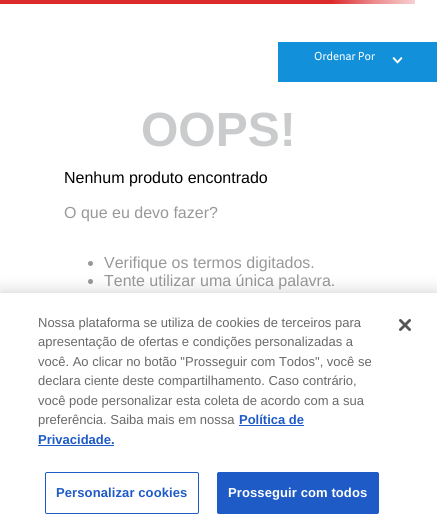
import math
import cairocffi as cairo

surface = cairo.ImageSurface(cairo.FORMAT_RGB24, 437, 530)
cr = cairo.Context(surface)
options = cairo.FontOptions()
options.set_hint_metrics(cairo.HINT_METRICS_OFF)
options.set_hint_style(cairo.HINT_STYLE_NONE)
cr.set_font_options(options)
cr.set_miter_limit(4)


def use_color(code):
    cr.set_source_rgb(*(v / 255 for v in bytes.fromhex(code[-6:])))


def spaced_text(x, y, s, letter, word):
    cr.move_to(x, y)
    for ch in s:
        cr.show_text(ch)
        cr.rel_move_to(letter + word * (ch == ' '), 0)


def round_rect(x, y, w, h, r):
    cr.new_sub_path()
    for i, (u, v) in enumerate([(x + w - r, y + h - r), (x + r, y + h - r), (x + r, y + r), (x + w - r, y + r)]):
        cr.arc(u, v, r, i * math.pi / 2, (i + 1) * math.pi / 2)
    cr.close_path()


def shadow(x, y, w, h, r, blur, alpha):
    cr.push_group_with_content(cairo.CONTENT_ALPHA)
    cr.set_operator(cairo.OPERATOR_SOURCE)
    for i in range(15, -16, -2):
        e = blur * i / 6
        if min(w, h) + 2 * e > 0:
            cr.set_source_rgba(0, 0, 0, alpha * math.erfc((i - 1) / 8.5) / 2)
            round_rect(x - e, y - e, w + 2 * e, h + 2 * e, max(0, min(r + e + blur * .6, min(w, h) / 2 + e)))
            cr.fill()
    cr.mask(cr.pop_group())


def picture(path, x, y, w, h):
    cr.save()
    cr.set_source_surface(cairo.ImageSurface.create_from_png(path), x, y)
    cr.rectangle(x, y, w, h)
    cr.fill()
    cr.restore()


use_color("#ffffff")
cr.paint()
gradient = cairo.LinearGradient(0, 2, 415, 2)
gradient.add_color_stop_rgba(0.8, 0.863, 0.169, 0.176, 1)
gradient.add_color_stop_rgba(0.9, 0.925, 0.537, 0.545, 1)
gradient.add_color_stop_rgba(1, 0.969, 0.816, 0.816, 1)
cr.set_source(gradient)
cr.rectangle(0, 0, 415, 4)
cr.fill()
use_color("#1290d9")
cr.rectangle(278, 42, 159, 40)
cr.fill()
cr.select_font_face("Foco")
cr.set_font_size(12)
use_color("#ffffff")
cr.move_to(314, 60)
cr.show_text("Ordenar Por")
picture("img1.png", 392, 57, 11, 7)
cr.select_font_face("Liberation Sans", cairo.FONT_SLANT_NORMAL, cairo.FONT_WEIGHT_BOLD)
cr.set_font_size(48)
use_color("#cacbcc")
cr.move_to(141, 146)
cr.show_text("OOPS!")
cr.select_font_face("Liberation Sans")
cr.set_font_size(16)
use_color("#000000")
cr.move_to(64, 183)
cr.show_text("Nenhum produto encontrado")
use_color("#979899")
cr.move_to(64, 218)
cr.show_text("O que eu devo fazer?")
cr.new_path()
cr.arc(90.5, 263.5, 2.5, 0, 2 * math.pi)
cr.fill()
cr.move_to(104, 268)
cr.show_text("Verifique os termos digitados.")
cr.new_path()
cr.arc(90.5, 281.5, 2.5, 0, 2 * math.pi)
cr.fill()
cr.move_to(104, 286)
cr.show_text("Tente utilizar uma única palavra.")
use_color("#000000")
shadow(0, 293, 437, 237, 0, 9, 0.2)
use_color("#ffffff")
cr.rectangle(0, 293, 437, 237)
cr.fill()
cr.set_font_size(13)
use_color("#696969")
cr.move_to(38, 327)
cr.show_text("Nossa plataforma se utiliza de cookies de terceiros para")
cr.move_to(38, 346)
cr.show_text("apresentação de ofertas e condições personalizadas a")
cr.move_to(38, 366)
cr.show_text("você. Ao clicar no botão \"Prosseguir com Todos\", você se")
cr.move_to(38, 385)
cr.show_text("declara ciente deste compartilhamento. Caso contrário,")
cr.move_to(38, 405)
cr.show_text("você pode personalizar esta coleta de acordo com a sua")
cr.move_to(38, 424)
cr.show_text("preferência. Saiba mais em nossa")
cr.select_font_face("Liberation Sans", cairo.FONT_SLANT_NORMAL, cairo.FONT_WEIGHT_BOLD)
use_color("#1e5bc6")
cr.move_to(239, 424)
cr.show_text("Política de")
cr.rectangle(239, 425, 65, 1)
cr.fill()
cr.move_to(38, 444)
cr.show_text("Privacidade.")
cr.rectangle(38, 445, 76, 1)
cr.fill()
round_rect(45.5, 472.5, 153, 41, 1.5)
cr.set_line_width(1)
cr.stroke()
spaced_text(56, 497, "Personalizar cookies", 0.1, 0)
round_rect(217.5, 472.5, 161, 41, 1.5)
cr.fill_preserve()
cr.stroke()
use_color("#ffffff")
spaced_text(228, 497, "Prosseguir com todos", 0.1, 0)
picture("img2.png", 399, 319, 12, 12)
surface.write_to_png("result.png")
